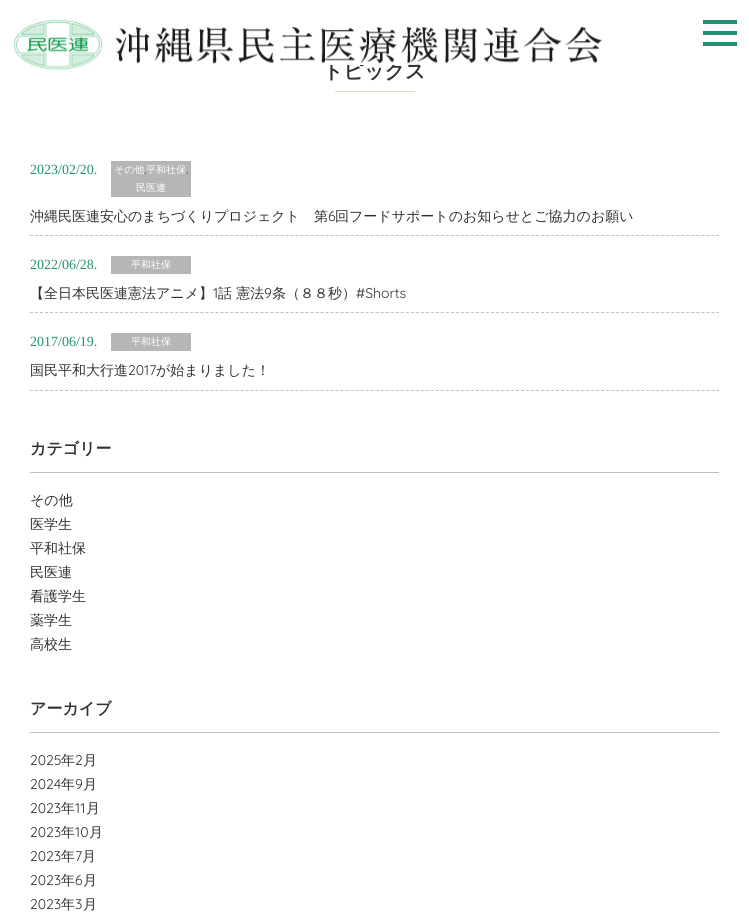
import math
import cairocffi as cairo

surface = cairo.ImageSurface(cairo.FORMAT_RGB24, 749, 919)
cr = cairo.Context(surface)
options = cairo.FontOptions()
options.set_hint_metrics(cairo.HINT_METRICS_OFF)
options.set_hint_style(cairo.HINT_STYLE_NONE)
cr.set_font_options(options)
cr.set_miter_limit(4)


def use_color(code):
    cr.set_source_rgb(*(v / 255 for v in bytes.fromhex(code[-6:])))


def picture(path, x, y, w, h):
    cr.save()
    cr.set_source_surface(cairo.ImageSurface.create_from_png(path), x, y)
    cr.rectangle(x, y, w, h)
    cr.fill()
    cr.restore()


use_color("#ffffff")
cr.paint()
cr.select_font_face("WenQuanYi Zen Hei", cairo.FONT_SLANT_NORMAL, cairo.FONT_WEIGHT_BOLD)
cr.set_font_size(20)
use_color("#313131")
cr.move_to(323, 78)
cr.show_text("トピックス")
use_color("#ffffff")
cr.rectangle(330, 62, 66, 3)
cr.fill()
picture("img1.png", 13, 19, 589, 51)
use_color("#229173")
cr.rectangle(703, 20, 34, 4)
cr.fill()
cr.rectangle(703, 31, 34, 4)
cr.fill()
cr.rectangle(703, 42, 34, 4)
cr.fill()
use_color("#ebd8c3")
cr.rectangle(335, 91, 80, 1)
cr.fill()
cr.new_path()
cr.move_to(30, 235.5)
cr.line_to(719, 235.5)
use_color("#bfbfbf")
cr.set_line_width(1)
cr.set_dash([3, 2.01])
cr.stroke()
cr.select_font_face("Liberation Serif")
cr.set_font_size(14)
use_color("#229173")
cr.move_to(30, 174)
cr.show_text("2023/02/20.")
use_color("#b6b6b6")
cr.rectangle(111, 161, 80, 36)
cr.fill()
cr.select_font_face("WenQuanYi Zen Hei Medium")
cr.set_font_size(10)
use_color("#ffffff")
cr.move_to(114, 173)
cr.show_text("その他")
cr.move_to(146, 173)
cr.show_text("平和社保")
cr.select_font_face("Quicksand")
use_color("#313131")
cr.move_to(144, 173)
cr.show_text(",")
cr.move_to(186, 173)
cr.show_text(",")
cr.select_font_face("WenQuanYi Zen Hei Medium")
use_color("#ffffff")
cr.move_to(136, 191)
cr.show_text("民医連")
cr.set_font_size(14)
use_color("#313131")
cr.move_to(30, 221)
cr.show_text("沖縄民医連安心のまちづくりプロジェクト　第")
cr.select_font_face("Quicksand")
cr.move_to(328, 221)
cr.show_text("6")
cr.select_font_face("WenQuanYi Zen Hei Medium")
cr.move_to(335, 221)
cr.show_text("回フードサポートのお知らせとご協力のお願い")
cr.new_path()
cr.move_to(30, 312.5)
cr.line_to(719, 312.5)
use_color("#bfbfbf")
cr.stroke()
cr.select_font_face("Liberation Serif")
use_color("#229173")
cr.move_to(30, 269)
cr.show_text("2022/06/28.")
use_color("#b6b6b6")
cr.rectangle(111, 256, 80, 18)
cr.fill()
cr.select_font_face("WenQuanYi Zen Hei Medium")
cr.set_font_size(10)
use_color("#ffffff")
cr.move_to(131, 268)
cr.show_text("平和社保")
cr.set_font_size(14)
use_color("#313131")
cr.move_to(30, 298)
cr.show_text("【全日本民医連憲法アニメ】")
cr.select_font_face("Quicksand")
cr.move_to(213, 298)
cr.show_text("1")
cr.select_font_face("WenQuanYi Zen Hei Medium")
cr.move_to(218, 298)
cr.show_text("話 憲法")
cr.select_font_face("Quicksand")
cr.move_to(264, 298)
cr.show_text("9")
cr.select_font_face("WenQuanYi Zen Hei Medium")
cr.move_to(272, 298)
cr.show_text("条（８８秒）")
cr.select_font_face("Quicksand")
cr.move_to(356, 298)
cr.show_text("#Shorts")
cr.new_path()
cr.move_to(30, 390.5)
cr.line_to(719, 390.5)
use_color("#bfbfbf")
cr.stroke()
cr.select_font_face("Liberation Serif")
use_color("#229173")
cr.move_to(30, 346)
cr.show_text("2017/06/19.")
use_color("#b6b6b6")
cr.rectangle(111, 333, 80, 18)
cr.fill()
cr.select_font_face("WenQuanYi Zen Hei Medium")
cr.set_font_size(10)
use_color("#ffffff")
cr.move_to(131, 345)
cr.show_text("平和社保")
cr.set_font_size(14)
use_color("#313131")
cr.move_to(30, 375)
cr.show_text("国民平和大行進")
cr.select_font_face("Quicksand")
cr.move_to(128, 375)
cr.show_text("2017")
cr.select_font_face("WenQuanYi Zen Hei Medium")
cr.move_to(156, 375)
cr.show_text("が始まりました！")
use_color("#bfbfbf")
cr.rectangle(30, 472, 689, 1)
cr.fill()
cr.select_font_face("WenQuanYi Zen Hei", cairo.FONT_SLANT_NORMAL, cairo.FONT_WEIGHT_BOLD)
cr.set_font_size(16)
use_color("#313131")
cr.move_to(30, 454)
cr.show_text("カテゴリー")
cr.select_font_face("WenQuanYi Zen Hei Medium")
cr.set_font_size(14)
cr.move_to(30, 505)
cr.show_text("その他")
cr.move_to(30, 529)
cr.show_text("医学生")
cr.move_to(30, 553)
cr.show_text("平和社保")
cr.move_to(30, 577)
cr.show_text("民医連")
cr.move_to(30, 601)
cr.show_text("看護学生")
cr.move_to(30, 625)
cr.show_text("薬学生")
cr.move_to(30, 649)
cr.show_text("高校生")
use_color("#bfbfbf")
cr.rectangle(30, 732, 689, 1)
cr.fill()
cr.select_font_face("WenQuanYi Zen Hei", cairo.FONT_SLANT_NORMAL, cairo.FONT_WEIGHT_BOLD)
cr.set_font_size(16)
use_color("#313131")
cr.move_to(30, 714)
cr.show_text("アーカイブ")
cr.select_font_face("Quicksand")
cr.set_font_size(14)
cr.move_to(30, 765)
cr.show_text("2025")
cr.select_font_face("WenQuanYi Zen Hei Medium")
cr.move_to(61, 765)
cr.show_text("年")
cr.select_font_face("Quicksand")
cr.move_to(75, 765)
cr.show_text("2")
cr.select_font_face("WenQuanYi Zen Hei Medium")
cr.move_to(83, 765)
cr.show_text("月")
cr.select_font_face("Quicksand")
cr.move_to(30, 789)
cr.show_text("2024")
cr.select_font_face("WenQuanYi Zen Hei Medium")
cr.move_to(61, 789)
cr.show_text("年")
cr.select_font_face("Quicksand")
cr.move_to(75, 789)
cr.show_text("9")
cr.select_font_face("WenQuanYi Zen Hei Medium")
cr.move_to(83, 789)
cr.show_text("月")
cr.select_font_face("Quicksand")
cr.move_to(30, 813)
cr.show_text("2023")
cr.select_font_face("WenQuanYi Zen Hei Medium")
cr.move_to(61, 813)
cr.show_text("年")
cr.select_font_face("Quicksand")
cr.move_to(75, 813)
cr.show_text("11")
cr.select_font_face("WenQuanYi Zen Hei Medium")
cr.move_to(86, 813)
cr.show_text("月")
cr.select_font_face("Quicksand")
cr.move_to(30, 837)
cr.show_text("2023")
cr.select_font_face("WenQuanYi Zen Hei Medium")
cr.move_to(61, 837)
cr.show_text("年")
cr.select_font_face("Quicksand")
cr.move_to(75, 837)
cr.show_text("10")
cr.select_font_face("WenQuanYi Zen Hei Medium")
cr.move_to(89, 837)
cr.show_text("月")
cr.select_font_face("Quicksand")
cr.move_to(30, 861)
cr.show_text("2023")
cr.select_font_face("WenQuanYi Zen Hei Medium")
cr.move_to(61, 861)
cr.show_text("年")
cr.select_font_face("Quicksand")
cr.move_to(75, 861)
cr.show_text("7")
cr.select_font_face("WenQuanYi Zen Hei Medium")
cr.move_to(82, 861)
cr.show_text("月")
cr.select_font_face("Quicksand")
cr.move_to(30, 885)
cr.show_text("2023")
cr.select_font_face("WenQuanYi Zen Hei Medium")
cr.move_to(61, 885)
cr.show_text("年")
cr.select_font_face("Quicksand")
cr.move_to(75, 885)
cr.show_text("6")
cr.select_font_face("WenQuanYi Zen Hei Medium")
cr.move_to(83, 885)
cr.show_text("月")
cr.select_font_face("Quicksand")
cr.move_to(30, 909)
cr.show_text("2023")
cr.select_font_face("WenQuanYi Zen Hei Medium")
cr.move_to(61, 909)
cr.show_text("年")
cr.select_font_face("Quicksand")
cr.move_to(75, 909)
cr.show_text("3")
cr.select_font_face("WenQuanYi Zen Hei Medium")
cr.move_to(83, 909)
cr.show_text("月")
surface.write_to_png("result.png")
